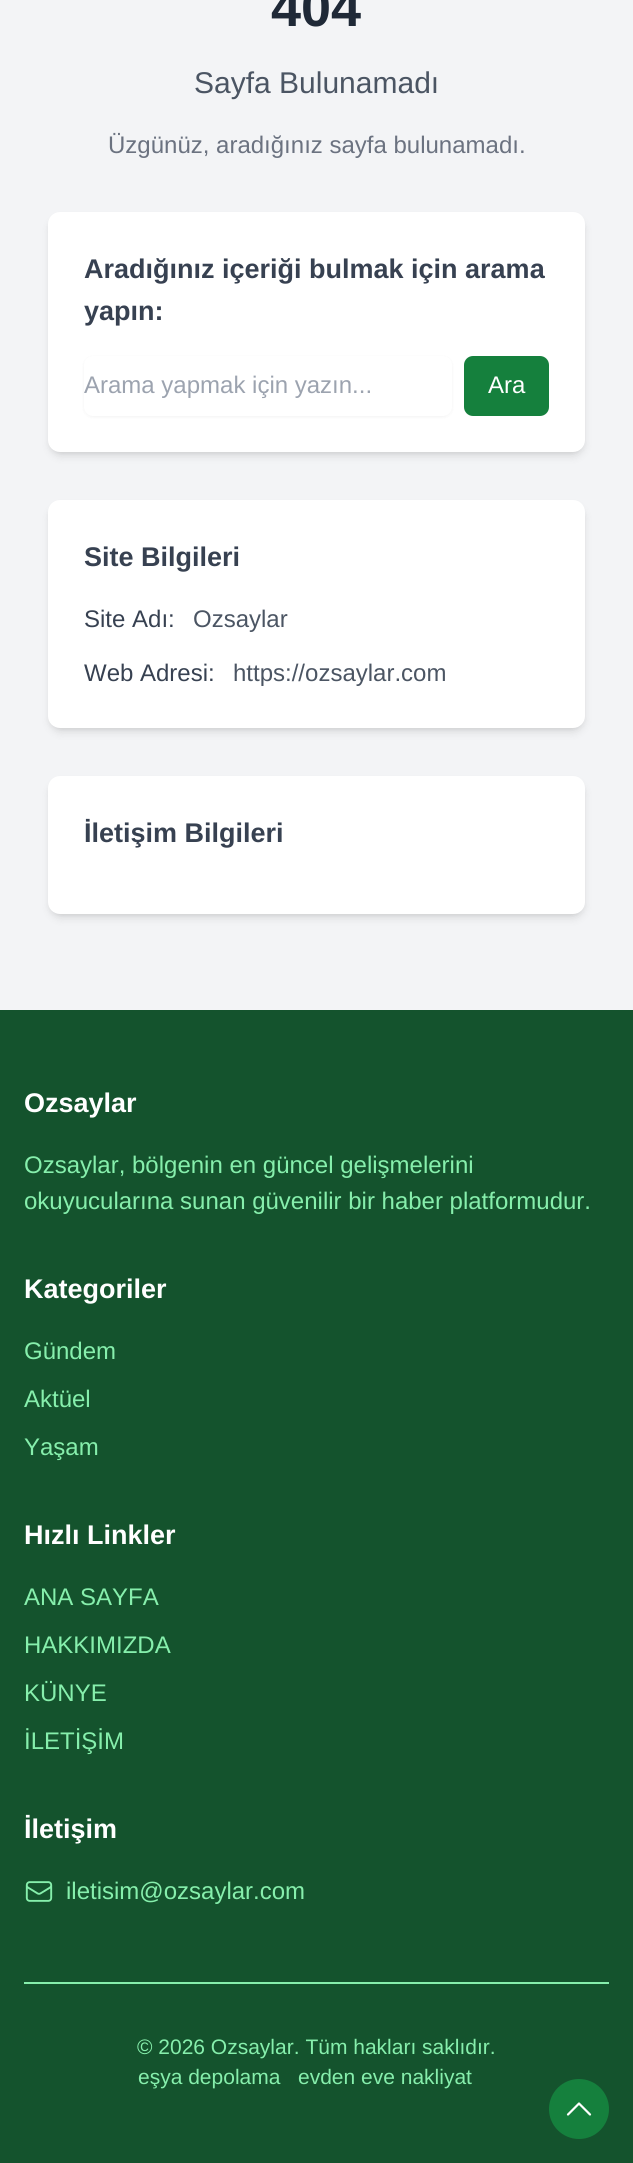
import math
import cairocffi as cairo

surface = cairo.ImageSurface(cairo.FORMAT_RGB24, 633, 2163)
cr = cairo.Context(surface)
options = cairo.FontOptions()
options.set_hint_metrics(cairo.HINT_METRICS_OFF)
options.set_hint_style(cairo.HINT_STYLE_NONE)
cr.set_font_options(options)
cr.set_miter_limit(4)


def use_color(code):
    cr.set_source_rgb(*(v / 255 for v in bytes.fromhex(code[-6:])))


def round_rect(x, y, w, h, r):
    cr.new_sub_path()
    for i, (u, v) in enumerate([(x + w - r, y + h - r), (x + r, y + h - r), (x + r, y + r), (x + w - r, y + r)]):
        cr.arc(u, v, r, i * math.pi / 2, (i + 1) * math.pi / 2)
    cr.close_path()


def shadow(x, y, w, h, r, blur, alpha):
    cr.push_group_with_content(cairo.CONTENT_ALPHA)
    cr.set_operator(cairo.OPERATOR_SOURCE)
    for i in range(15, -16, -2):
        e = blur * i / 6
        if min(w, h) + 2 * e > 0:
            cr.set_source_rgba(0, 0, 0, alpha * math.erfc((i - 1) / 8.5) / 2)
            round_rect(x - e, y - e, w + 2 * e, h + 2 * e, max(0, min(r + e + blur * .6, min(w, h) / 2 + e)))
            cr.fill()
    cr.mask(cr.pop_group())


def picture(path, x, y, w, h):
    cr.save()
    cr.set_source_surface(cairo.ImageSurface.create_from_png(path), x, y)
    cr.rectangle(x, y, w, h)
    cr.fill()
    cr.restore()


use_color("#f3f4f6")
cr.paint()
cr.select_font_face("Liberation Sans", cairo.FONT_SLANT_NORMAL, cairo.FONT_WEIGHT_BOLD)
cr.set_font_size(54)
use_color("#1f2937")
cr.move_to(271, 26)
cr.show_text("404")
cr.select_font_face("Liberation Sans")
cr.set_font_size(30)
use_color("#4b5563")
cr.move_to(194, 93)
cr.show_text("Sayfa Bulunamadı")
cr.set_font_size(24)
use_color("#6b7280")
cr.move_to(108, 153)
cr.show_text("Üzgünüz, aradığınız sayfa bulunamadı.")
use_color("#000000")
shadow(51, 218, 531, 234, 9, 3, 0.1)
shadow(50, 219, 534, 237, 11, 4.5, 0.1)
use_color("#ffffff")
round_rect(48, 212, 537, 240, 12)
cr.fill()
cr.select_font_face("Liberation Sans", cairo.FONT_SLANT_NORMAL, cairo.FONT_WEIGHT_BOLD)
cr.set_font_size(27)
use_color("#374151")
cr.move_to(84, 278)
cr.show_text("Aradığınız içeriği bulmak için arama")
cr.move_to(84, 320)
cr.show_text("yapın:")
use_color("#000000")
shadow(84, 357, 368, 60, 9, 1.5, 0.05)
use_color("#ffffff")
round_rect(84, 356, 368, 60, 9)
cr.fill()
cr.select_font_face("Liberation Sans")
cr.set_font_size(24)
use_color("#9ca3af")
cr.move_to(84, 393)
cr.show_text("Arama yapmak için yazın...")
use_color("#15803d")
round_rect(464, 356, 85, 60, 9)
cr.fill()
use_color("#ffffff")
cr.move_to(488, 393)
cr.show_text("Ara")
use_color("#000000")
shadow(51, 506, 531, 222, 9, 3, 0.1)
shadow(50, 507, 534, 225, 11, 4.5, 0.1)
use_color("#ffffff")
round_rect(48, 500, 537, 228, 12)
cr.fill()
cr.select_font_face("Liberation Sans", cairo.FONT_SLANT_NORMAL, cairo.FONT_WEIGHT_BOLD)
cr.set_font_size(27)
use_color("#374151")
cr.move_to(84, 566)
cr.show_text("Site Bilgileri")
cr.select_font_face("Liberation Sans")
cr.set_font_size(24)
cr.move_to(84, 627)
cr.show_text("Site Adı:")
use_color("#4b5563")
cr.move_to(193, 627)
cr.show_text("Ozsaylar")
use_color("#374151")
cr.move_to(84, 681)
cr.show_text("Web Adresi:")
use_color("#4b5563")
cr.move_to(233, 681)
cr.show_text("https://ozsaylar.com")
use_color("#000000")
shadow(51, 782, 531, 132, 9, 3, 0.1)
shadow(50, 783, 534, 135, 11, 4.5, 0.1)
use_color("#ffffff")
round_rect(48, 776, 537, 138, 12)
cr.fill()
cr.select_font_face("Liberation Sans", cairo.FONT_SLANT_NORMAL, cairo.FONT_WEIGHT_BOLD)
cr.set_font_size(27)
use_color("#374151")
cr.move_to(84, 842)
cr.show_text("İletişim Bilgileri")
use_color("#14532d")
cr.rectangle(0, 1010, 633, 1153)
cr.fill()
use_color("#ffffff")
cr.move_to(24, 1112)
cr.show_text("Ozsaylar")
cr.select_font_face("Liberation Sans")
cr.set_font_size(24)
use_color("#86efac")
cr.move_to(24, 1173)
cr.show_text("Ozsaylar, bölgenin en güncel gelişmelerini")
cr.move_to(24, 1209)
cr.show_text("okuyucularına sunan güvenilir bir haber platformudur.")
cr.select_font_face("Liberation Sans", cairo.FONT_SLANT_NORMAL, cairo.FONT_WEIGHT_BOLD)
cr.set_font_size(27)
use_color("#ffffff")
cr.move_to(24, 1298)
cr.show_text("Kategoriler")
cr.select_font_face("Liberation Sans")
cr.set_font_size(24)
use_color("#86efac")
cr.move_to(24, 1359)
cr.show_text("Gündem")
cr.move_to(24, 1407)
cr.show_text("Aktüel")
cr.move_to(24, 1455)
cr.show_text("Yaşam")
cr.select_font_face("Liberation Sans", cairo.FONT_SLANT_NORMAL, cairo.FONT_WEIGHT_BOLD)
cr.set_font_size(27)
use_color("#ffffff")
cr.move_to(24, 1544)
cr.show_text("Hızlı Linkler")
cr.select_font_face("Liberation Sans")
cr.set_font_size(24)
use_color("#86efac")
cr.move_to(24, 1605)
cr.show_text("ANA SAYFA")
cr.move_to(24, 1653)
cr.show_text("HAKKIMIZDA")
cr.move_to(24, 1701)
cr.show_text("KÜNYE")
cr.move_to(24, 1749)
cr.show_text("İLETİŞİM")
cr.select_font_face("Liberation Sans", cairo.FONT_SLANT_NORMAL, cairo.FONT_WEIGHT_BOLD)
cr.set_font_size(27)
use_color("#ffffff")
cr.move_to(24, 1838)
cr.show_text("İletişim")
picture("img1.png", 25, 1881, 28, 21)
cr.select_font_face("Liberation Sans")
cr.set_font_size(24)
use_color("#86efac")
cr.move_to(66, 1899)
cr.show_text("iletisim@ozsaylar.com")
cr.rectangle(24, 1982, 585, 2)
cr.fill()
cr.set_font_size(21)
cr.move_to(137, 2054)
cr.show_text("© 2026 Ozsaylar. Tüm hakları saklıdır.")
cr.move_to(138, 2084)
cr.show_text("eşya depolama")
cr.move_to(298, 2084)
cr.show_text("evden eve nakliyat")
use_color("#15803d")
cr.new_path()
cr.arc(579, 2109, 30, 0, 2 * math.pi)
cr.fill()
cr.new_path()
cr.move_to(568, 2114.5)
cr.line_to(579, 2103.5)
cr.line_to(590, 2114.5)
use_color("#ffffff")
cr.set_line_width(2.2)
cr.set_line_cap(cairo.LINE_CAP_ROUND)
cr.set_line_join(cairo.LINE_JOIN_ROUND)
cr.stroke()
surface.write_to_png("result.png")
